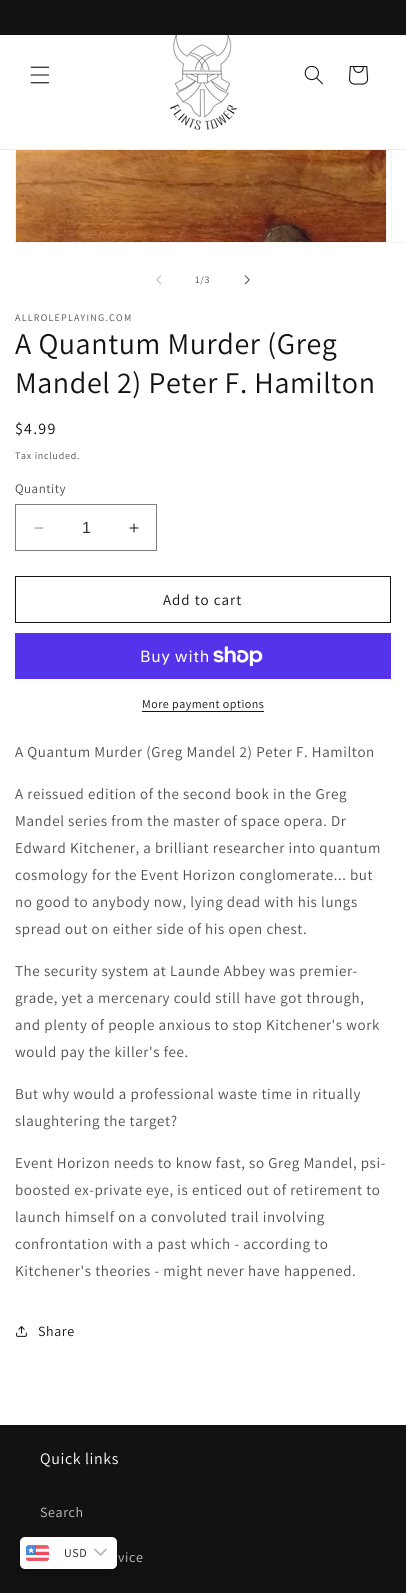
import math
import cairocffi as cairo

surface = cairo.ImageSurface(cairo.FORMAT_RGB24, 406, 1593)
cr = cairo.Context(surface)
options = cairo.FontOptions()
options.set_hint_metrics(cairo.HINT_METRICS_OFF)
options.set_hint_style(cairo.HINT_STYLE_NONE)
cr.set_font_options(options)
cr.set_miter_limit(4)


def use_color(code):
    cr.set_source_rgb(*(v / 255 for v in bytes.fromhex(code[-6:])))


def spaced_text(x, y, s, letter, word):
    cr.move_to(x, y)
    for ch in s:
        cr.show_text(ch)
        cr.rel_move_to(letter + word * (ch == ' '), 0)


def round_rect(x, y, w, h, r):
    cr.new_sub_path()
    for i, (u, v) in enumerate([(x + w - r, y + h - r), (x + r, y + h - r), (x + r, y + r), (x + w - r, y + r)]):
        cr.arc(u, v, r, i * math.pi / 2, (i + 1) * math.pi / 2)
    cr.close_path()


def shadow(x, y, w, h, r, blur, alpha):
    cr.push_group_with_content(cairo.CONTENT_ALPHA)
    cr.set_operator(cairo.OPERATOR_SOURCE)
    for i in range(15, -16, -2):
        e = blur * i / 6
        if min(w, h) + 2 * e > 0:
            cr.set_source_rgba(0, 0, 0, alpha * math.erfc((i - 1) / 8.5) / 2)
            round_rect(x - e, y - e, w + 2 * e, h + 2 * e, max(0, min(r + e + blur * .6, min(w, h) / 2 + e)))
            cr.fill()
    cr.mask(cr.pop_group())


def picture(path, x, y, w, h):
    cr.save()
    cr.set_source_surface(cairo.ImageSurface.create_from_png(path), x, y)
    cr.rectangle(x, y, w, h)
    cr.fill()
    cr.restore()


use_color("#ffffff")
cr.paint()
cr.rectangle(15.5, -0.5, 371, 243)
use_color("#f3f3f3")
cr.set_line_width(1)
cr.stroke()
cr.rectangle(391.5, -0.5, 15, 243)
cr.stroke()
use_color("#121212")
cr.rectangle(0, 0, 406, 35)
cr.fill()
use_color("#ffffff")
cr.rectangle(15, 35, 377, 114)
cr.fill()
use_color("#ececec")
cr.rectangle(0, 149, 406, 1)
cr.fill()
picture("img1.png", 30, 66, 20, 18)
picture("img2.png", 168, 35, 70, 95)
picture("img3.png", 304, 65, 19, 20)
picture("img4.png", 349, 66, 20, 19)
picture("img5.png", 16, 150, 370, 92)
picture("img6.png", 156, 275, 6, 10)
cr.select_font_face("Assistant")
cr.set_font_size(10)
use_color("#4d4d4d")
spaced_text(195, 283, "1/3", 0.75, 0)
picture("img7.png", 244, 275, 6, 10)
spaced_text(15, 321, "ALLROLEPLAYING.COM", 1.25, 0)
cr.set_font_size(30)
use_color("#121212")
spaced_text(15, 354, "A Quantum Murder (Greg", 0.6, 0)
spaced_text(15, 393, "Mandel 2) Peter F. Hamilton", 0.6, 0)
cr.set_font_size(16)
spaced_text(15, 434, "$4.99", 1.25, 0)
cr.set_font_size(10)
use_color("#4d4d4d")
spaced_text(15, 459, "Tax included.", 0.75, 0)
cr.set_font_size(13)
spaced_text(15, 493, "Quantity", 0.5, 0)
picture("img8.png", 34, 527, 10, 2)
picture("img9.png", 129, 523, 10, 10)
cr.rectangle(15.5, 504.5, 141, 46)
use_color("#7d7d7d")
cr.stroke()
cr.select_font_face("Liberation Sans")
cr.set_font_size(16)
use_color("#363636")
cr.move_to(82, 533)
cr.show_text("1")
cr.rectangle(15.5, 576.5, 375, 46)
use_color("#121212")
cr.stroke()
cr.select_font_face("Assistant")
cr.set_font_size(15)
spaced_text(163, 605, "Add to cart", 1, 0)
use_color("#5433eb")
cr.rectangle(15, 633, 376, 46)
cr.fill()
cr.select_font_face("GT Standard")
cr.set_font_size(16)
use_color("#ffffff")
spaced_text(140, 662, "Buy with", 0.6, 0)
picture("img10.png", 213, 646, 50, 20)
cr.select_font_face("Assistant")
cr.set_font_size(12)
use_color("#121212")
spaced_text(142, 708, "More payment options", 0.5, 0)
cr.rectangle(142, 711, 122, 1)
cr.fill()
cr.set_font_size(15)
use_color("#4d4d4d")
spaced_text(15, 757, "A Quantum Murder (Greg Mandel 2) Peter F. Hamilton", 0.6, 0)
spaced_text(15, 799, "A reissued edition of the second book in the Greg", 0.6, 0)
spaced_text(15, 826, "Mandel series from the master of space opera. Dr", 0.6, 0)
spaced_text(15, 853, "Edward Kitchener, a brilliant researcher into quantum", 0.6, 0)
spaced_text(15, 880, "cosmology for the Event Horizon conglomerate... but", 0.6, 0)
spaced_text(15, 907, "no good to anybody now, lying dead with his lungs", 0.6, 0)
spaced_text(15, 934, "spread out on either side of his open chest.", 0.6, 0)
spaced_text(15, 976, "The security system at Launde Abbey was premier-", 0.6, 0)
spaced_text(15, 1003, "grade, yet a mercenary could still have got through,", 0.6, 0)
spaced_text(15, 1030, "and plenty of people anxious to stop Kitchener's work", 0.6, 0)
spaced_text(15, 1057, "would pay the killer's fee.", 0.6, 0)
spaced_text(15, 1099, "But why would a professional waste time in ritually", 0.6, 0)
spaced_text(15, 1126, "slaughtering the target?", 0.6, 0)
spaced_text(15, 1168, "Event Horizon needs to know fast, so Greg Mandel, psi-", 0.6, 0)
spaced_text(15, 1195, "boosted ex-private eye, is enticed out of retirement to", 0.6, 0)
spaced_text(15, 1222, "launch himself on a convoluted trail involving", 0.6, 0)
spaced_text(15, 1249, "confrontation with a past which - according to", 0.6, 0)
spaced_text(15, 1276, "Kitchener's theories - might never have happened.", 0.6, 0)
picture("img11.png", 16, 1326, 11, 11)
cr.set_font_size(14)
use_color("#121212")
spaced_text(38, 1336, "Share", 0.6, 0)
cr.rectangle(0, 1425, 406, 168)
cr.fill()
cr.set_font_size(16)
use_color("#ffffff")
spaced_text(40, 1464, "Quick links", 0.6, 0)
cr.set_font_size(14)
use_color("#c4c4c4")
spaced_text(40, 1517, "Search", 0.6, 0)
spaced_text(118, 1562, "vice", 0.6, 0)
use_color("#000000")
shadow(20, 1543, 97, 32, 5, 10, 0.19)
use_color("#ffffff")
round_rect(20, 1537, 97, 32, 5)
cr.fill()
picture("img12.png", 26, 1545, 23, 16)
cr.set_font_size(12)
use_color("#1e1e1e")
spaced_text(64, 1557, "USD", 0.6, 0)
cr.new_path()
cr.move_to(95, 1549.5)
cr.line_to(100.5, 1555)
cr.line_to(106, 1549.5)
use_color("#b7b7b7")
cr.set_line_width(1.8)
cr.set_line_cap(cairo.LINE_CAP_ROUND)
cr.set_line_join(cairo.LINE_JOIN_ROUND)
cr.stroke()
surface.write_to_png("result.png")
